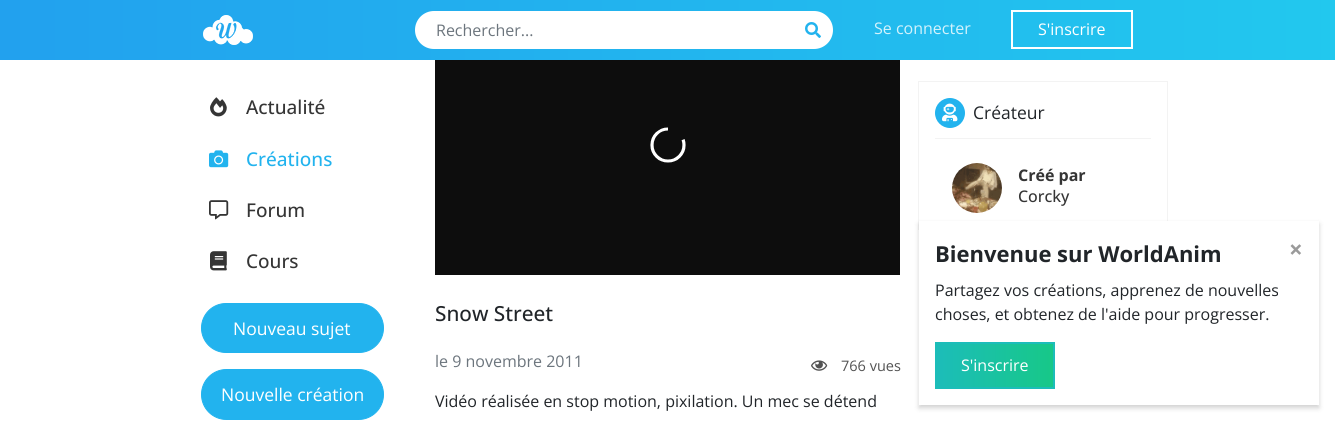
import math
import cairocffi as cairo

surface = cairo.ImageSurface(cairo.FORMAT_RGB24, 1335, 421)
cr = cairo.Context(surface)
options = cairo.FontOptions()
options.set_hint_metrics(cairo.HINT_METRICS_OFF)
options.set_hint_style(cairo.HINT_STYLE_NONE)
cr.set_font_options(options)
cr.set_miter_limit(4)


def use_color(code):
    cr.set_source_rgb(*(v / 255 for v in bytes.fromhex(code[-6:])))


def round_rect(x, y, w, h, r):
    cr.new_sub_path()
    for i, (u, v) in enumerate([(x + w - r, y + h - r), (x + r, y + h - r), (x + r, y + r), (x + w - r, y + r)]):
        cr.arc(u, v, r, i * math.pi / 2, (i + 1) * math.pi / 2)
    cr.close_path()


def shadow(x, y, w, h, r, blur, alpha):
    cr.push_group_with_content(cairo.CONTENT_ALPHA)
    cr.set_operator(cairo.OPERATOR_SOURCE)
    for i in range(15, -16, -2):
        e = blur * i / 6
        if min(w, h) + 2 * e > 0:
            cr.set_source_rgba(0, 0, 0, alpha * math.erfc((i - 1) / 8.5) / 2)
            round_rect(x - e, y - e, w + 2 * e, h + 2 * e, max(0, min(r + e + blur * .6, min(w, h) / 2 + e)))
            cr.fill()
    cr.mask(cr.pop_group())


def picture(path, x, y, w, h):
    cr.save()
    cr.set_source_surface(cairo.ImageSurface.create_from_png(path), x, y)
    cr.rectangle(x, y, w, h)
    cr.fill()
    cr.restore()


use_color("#ffffff")
cr.paint()
gradient = cairo.LinearGradient(0, 30, 1335, 30)
gradient.add_color_stop_rgba(0, 0.133, 0.631, 0.933, 1)
gradient.add_color_stop_rgba(1, 0.133, 0.784, 0.933, 1)
cr.set_source(gradient)
cr.rectangle(0, 0, 1335, 60)
cr.fill()
picture("img1.png", 203, 15, 50, 30)
use_color("#ffffff")
cr.new_path()
cr.move_to(793, 11)
cr.line_to(814, 11)
cr.curve_to(824.5, 11, 833, 19.5, 833, 30)
cr.curve_to(833, 40.5, 824.5, 49, 814, 49)
cr.line_to(793, 49)
cr.close_path()
cr.fill()
cr.new_path()
cr.move_to(434, 11)
cr.line_to(794, 11)
cr.line_to(794, 49)
cr.line_to(434, 49)
cr.curve_to(423.5, 49, 415, 40.5, 415, 30)
cr.curve_to(415, 19.5, 423.5, 11, 434, 11)
cr.close_path()
cr.fill()
cr.select_font_face("Open Sans")
cr.set_font_size(16)
use_color("#6c757d")
cr.move_to(436, 36)
cr.show_text("Rechercher...")
picture("img2.png", 805, 22, 16, 16)
use_color("#d3f2fc")
cr.move_to(874, 34)
cr.show_text("Se connecter")
cr.rectangle(1012, 11, 120, 37)
use_color("#ffffff")
cr.stroke()
cr.move_to(1038, 35)
cr.show_text("S'inscrire")
picture("img3.png", 210, 97, 17, 20)
cr.select_font_face("Open Sans Medium")
cr.set_font_size(19)
use_color("#353535")
cr.move_to(246, 114)
cr.show_text("Actualité")
picture("img4.png", 209, 150, 20, 18)
use_color("#22b3ee")
cr.move_to(246, 166)
cr.show_text("Créations")
picture("img5.png", 209, 200, 20, 20)
use_color("#353535")
cr.move_to(246, 217)
cr.show_text("Forum")
picture("img6.png", 210, 251, 17, 20)
cr.move_to(246, 268)
cr.show_text("Cours")
use_color("#22b3ee")
round_rect(201.5, 303.5, 182, 49, 24.5)
cr.fill_preserve()
cr.set_line_width(1)
cr.stroke()
cr.select_font_face("Open Sans")
cr.set_font_size(17.5)
use_color("#ffffff")
cr.move_to(233, 335)
cr.show_text("Nouveau sujet")
use_color("#22b3ee")
round_rect(201.5, 369.5, 182, 50, 25)
cr.fill_preserve()
cr.stroke()
use_color("#ffffff")
cr.move_to(221, 401)
cr.show_text("Nouvelle création")
cr.rectangle(918.5, 81.5, 249, 148)
use_color("#f3f3f3")
cr.stroke()
cr.rectangle(935, 138, 216, 1)
cr.fill()
use_color("#22b3ee")
cr.arc(950, 113, 15, 0, 2 * math.pi)
cr.fill()
picture("img7.png", 942, 103, 16, 19)
use_color("#212529")
cr.move_to(973, 119)
cr.show_text("Créateur")
picture("img8.png", 952, 163, 50, 50)
cr.select_font_face("Open Sans", cairo.FONT_SLANT_NORMAL, cairo.FONT_WEIGHT_BOLD)
cr.set_font_size(16)
use_color("#353535")
cr.move_to(1018, 181)
cr.show_text("Créé par")
cr.select_font_face("Open Sans Medium")
cr.move_to(1018, 202)
cr.show_text("Corcky")
picture("img9.png", 435, 60, 465, 215)
cr.set_font_size(20.75)
use_color("#212529")
cr.move_to(435, 321)
cr.show_text("Snow Street")
cr.select_font_face("Open Sans")
cr.set_font_size(16)
use_color("#6c757d")
cr.move_to(435, 367)
cr.show_text("le 9 novembre 2011")
picture("img10.png", 811, 360, 17, 11)
cr.set_font_size(14.5)
use_color("#535353")
cr.move_to(841, 371)
cr.show_text("766 vues")
cr.set_font_size(16)
use_color("#212529")
cr.move_to(435, 407)
cr.show_text("Vidéo réalisée en stop motion, pixilation. Un mec se détend")
use_color("#191919")
shadow(919, 224, 400, 184, 0, 2.5, 0.2)
use_color("#ffffff")
cr.rectangle(919, 221, 400, 184)
cr.fill()
cr.select_font_face("Open Sans", cairo.FONT_SLANT_NORMAL, cairo.FONT_WEIGHT_BOLD)
cr.set_font_size(22)
use_color("#212529")
cr.move_to(935, 262)
cr.show_text("Bienvenue sur WorldAnim")
cr.set_font_size(24)
use_color("#9a9a9a")
cr.move_to(1289, 258)
cr.show_text("×")
cr.select_font_face("Open Sans")
cr.set_font_size(16)
use_color("#212529")
cr.move_to(935, 296)
cr.show_text("Partagez vos créations, apprenez de nouvelles")
cr.move_to(935, 320)
cr.show_text("choses, et obtenez de l'aide pour progresser.")
gradient = cairo.LinearGradient(937, 366, 1053, 366)
gradient.add_color_stop_rgba(0, 0.11, 0.741, 0.725, 1)
gradient.add_color_stop_rgba(1, 0.09, 0.784, 0.533, 1)
cr.set_source(gradient)
cr.rectangle(937, 344, 116, 43)
cr.fill()
cr.rectangle(936, 343, 118, 45)
use_color("#1cbdb9")
cr.set_line_width(2)
cr.stroke()
use_color("#ffffff")
cr.move_to(961, 371)
cr.show_text("S'inscrire")
surface.write_to_png("result.png")
